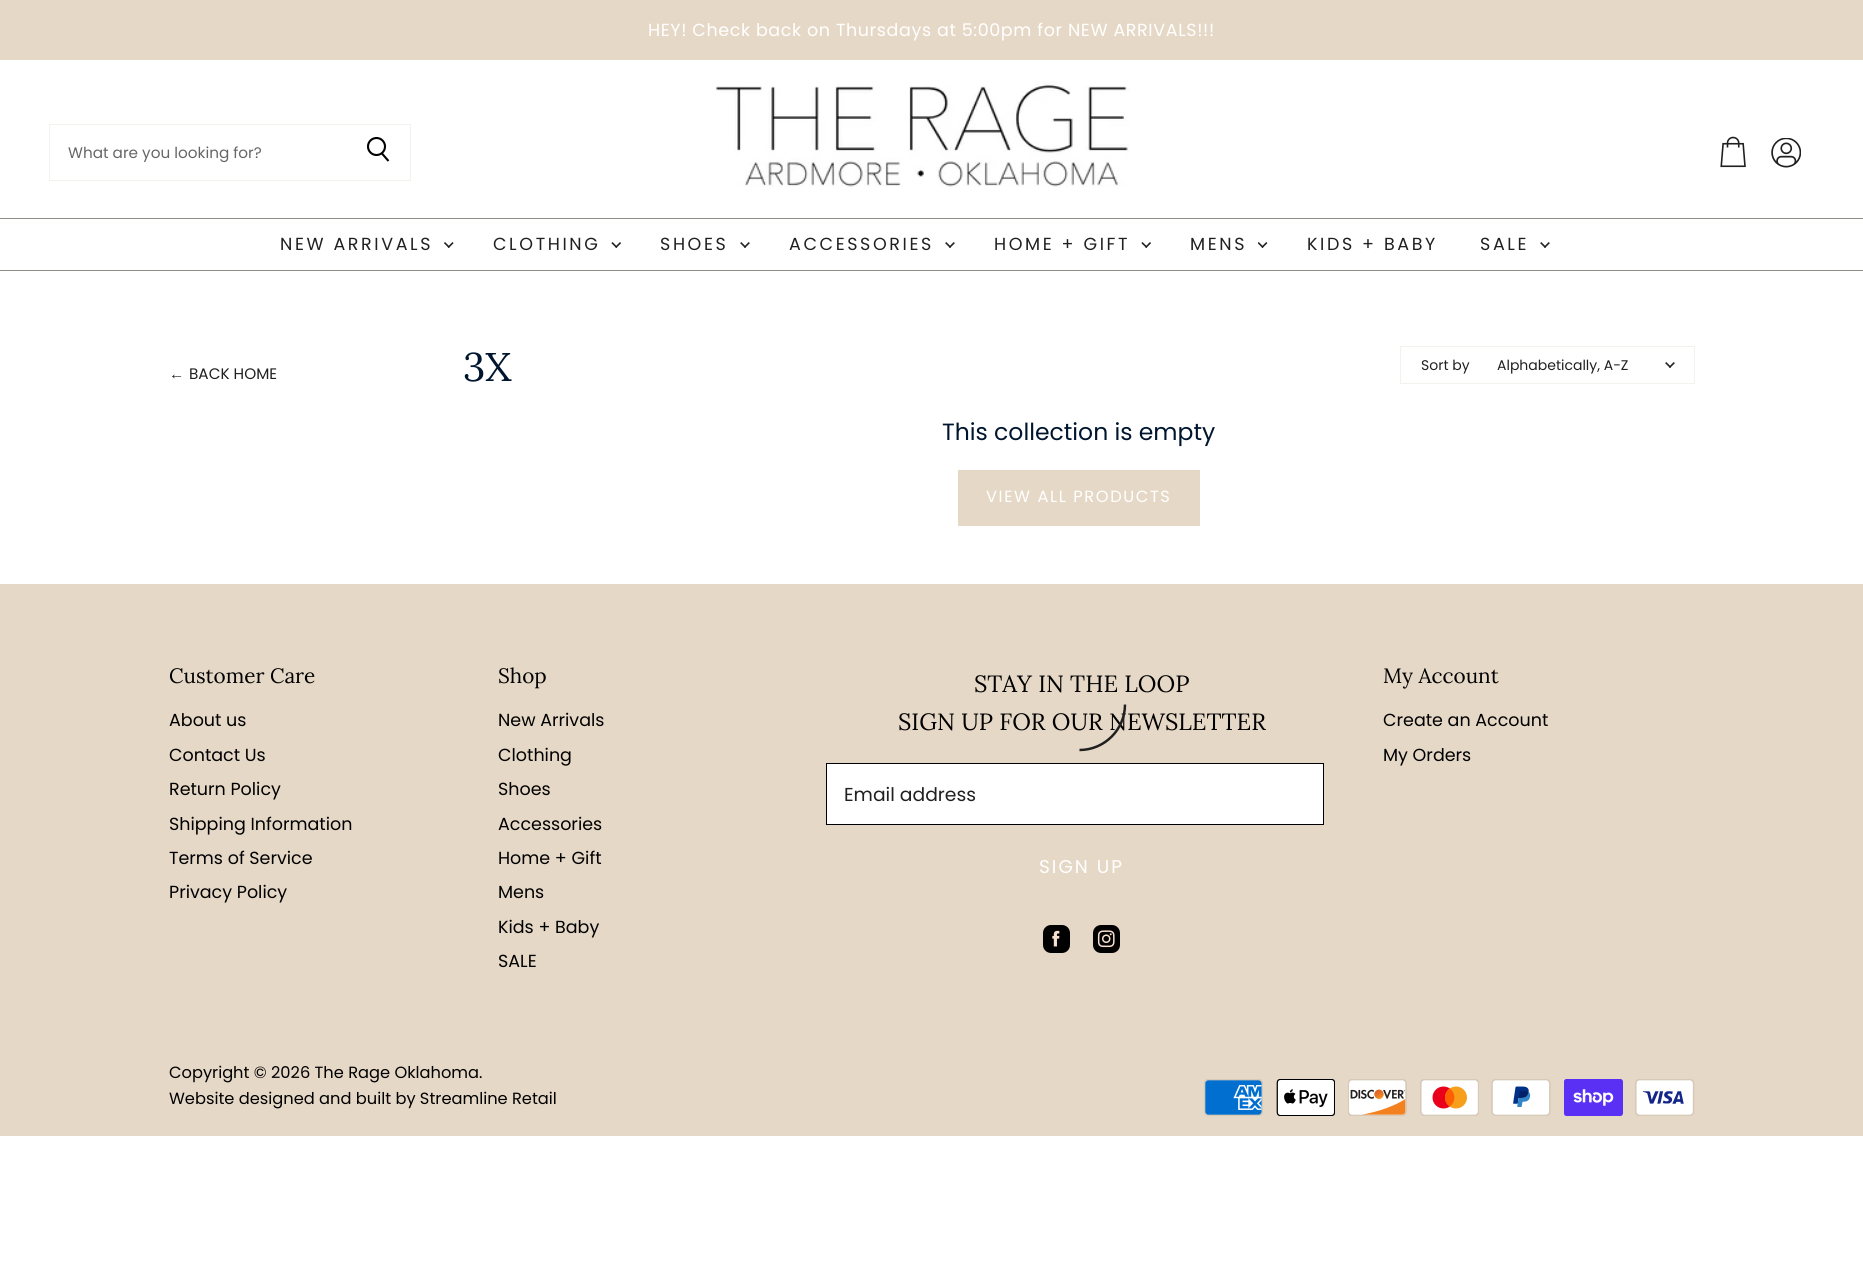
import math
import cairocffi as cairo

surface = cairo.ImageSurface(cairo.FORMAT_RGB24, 1863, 1266)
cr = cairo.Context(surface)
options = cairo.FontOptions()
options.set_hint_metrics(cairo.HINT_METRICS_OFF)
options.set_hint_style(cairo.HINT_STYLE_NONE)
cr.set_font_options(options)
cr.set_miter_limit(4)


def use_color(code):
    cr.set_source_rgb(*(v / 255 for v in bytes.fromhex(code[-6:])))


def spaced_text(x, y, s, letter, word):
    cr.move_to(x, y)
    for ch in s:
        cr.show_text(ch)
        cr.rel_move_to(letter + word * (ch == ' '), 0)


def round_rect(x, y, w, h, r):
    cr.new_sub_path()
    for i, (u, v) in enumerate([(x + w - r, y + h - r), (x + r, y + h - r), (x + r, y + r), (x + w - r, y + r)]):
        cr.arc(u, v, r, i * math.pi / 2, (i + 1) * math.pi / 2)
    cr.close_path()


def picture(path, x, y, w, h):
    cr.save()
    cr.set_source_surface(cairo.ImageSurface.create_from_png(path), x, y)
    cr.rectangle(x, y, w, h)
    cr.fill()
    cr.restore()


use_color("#ffffff")
cr.paint()
use_color("#e6d8c6")
cr.rectangle(0, 0, 1863, 60)
cr.fill()
cr.select_font_face("Poppins")
cr.set_font_size(17.5)
use_color("#ffffff")
spaced_text(648, 36, "HEY! Check back on Thursdays at 5:00pm for NEW ARRIVALS!!!", 0.62, 0)
use_color("#8f8d88")
cr.rectangle(0, 270, 1863, 1)
cr.fill()
use_color("#f4f2ec")
cr.rectangle(49, 124, 362, 1)
cr.fill()
cr.rectangle(410, 124, 1, 57)
cr.fill()
cr.rectangle(49, 180, 362, 1)
cr.fill()
cr.new_path()
cr.move_to(388.5, 161)
cr.line_to(381.5, 153)
use_color("#000000")
cr.set_line_width(2.1)
cr.stroke()
cr.arc(376.5, 146.5, 8.5, 0, 2 * math.pi)
cr.stroke()
use_color("#f4f2ec")
cr.rectangle(49, 124, 1, 57)
cr.fill()
cr.set_font_size(15.25)
use_color("#666666")
cr.move_to(68, 158)
cr.show_text("What are you looking for?")
picture("img1.png", 716, 81, 414, 106)
picture("img2.png", 1720, 136, 26, 32)
picture("img3.png", 1771, 138, 30, 30)
use_color("#8f8d88")
cr.rectangle(0, 218, 1863, 1)
cr.fill()
cr.set_font_size(17.5)
use_color("#202020")
spaced_text(280, 250, "NEW ARRIVALS", 2.6, 0)
picture("img4.png", 444, 242, 10, 6)
spaced_text(493, 250, "CLOTHING", 2.6, 0)
picture("img5.png", 611, 242, 10, 6)
spaced_text(660, 250, "SHOES", 2.6, 0)
picture("img6.png", 740, 242, 10, 6)
spaced_text(789, 250, "ACCESSORIES", 2.6, 0)
picture("img6.png", 945, 242, 10, 6)
spaced_text(994, 250, "HOME + GIFT", 2.6, 0)
picture("img5.png", 1141, 242, 10, 6)
spaced_text(1190, 250, "MENS", 2.6, 0)
picture("img7.png", 1258, 242, 10, 6)
spaced_text(1307, 250, "KIDS + BABY", 2.6, 0)
spaced_text(1480, 250, "SALE", 2.6, 0)
picture("img6.png", 1540, 242, 10, 6)
cr.select_font_face("Liberation Sans")
cr.set_font_size(15.25)
cr.move_to(169, 379)
cr.show_text("←")
cr.select_font_face("Poppins")
cr.move_to(189, 379)
cr.show_text("BACK HOME")
cr.select_font_face("Lora")
cr.set_font_size(40)
use_color("#00162f")
cr.move_to(463, 381)
cr.show_text("3X")
cr.rectangle(1400.5, 346.5, 294, 37)
use_color("#f4f2ec")
cr.set_line_width(1)
cr.stroke()
cr.select_font_face("Poppins")
cr.set_font_size(14)
use_color("#202020")
cr.move_to(1421, 370)
cr.show_text("Sort by")
cr.move_to(1497, 370)
cr.show_text("Alphabetically, A-Z")
picture("img6.png", 1665, 362, 10, 6)
cr.set_font_size(23.5)
use_color("#00162f")
cr.move_to(942, 440)
cr.show_text("This collection is empty")
use_color("#e6d8c6")
cr.rectangle(958, 470, 242, 56)
cr.fill()
cr.set_font_size(16.25)
use_color("#ffffff")
spaced_text(986, 502, "VIEW ALL PRODUCTS", 1.6, 0)
use_color("#e6d8c6")
cr.rectangle(0, 584, 1863, 552)
cr.fill()
cr.select_font_face("Lora")
cr.set_font_size(23.5)
use_color("#000000")
cr.move_to(898, 730)
cr.show_text("SIGN UP FOR OUR NEWSLETTER")
cr.new_path()
cr.move_to(1125, 704.5)
cr.curve_to(1125, 729.5, 1104.5, 750, 1079.5, 750)
use_color("#202020")
cr.set_line_width(2.5)
cr.stroke()
cr.set_font_size(20.75)
use_color("#000000")
cr.move_to(169, 683)
cr.show_text("Customer Care")
cr.select_font_face("Poppins")
cr.set_font_size(17.5)
cr.move_to(169, 726)
cr.show_text("About us")
cr.move_to(169, 761)
cr.show_text("Contact Us")
cr.move_to(169, 795)
cr.show_text("Return Policy")
cr.move_to(169, 830)
cr.show_text("Shipping Information")
cr.move_to(169, 864)
cr.show_text("Terms of Service")
cr.move_to(169, 898)
cr.show_text("Privacy Policy")
cr.select_font_face("Lora")
cr.set_font_size(20.75)
cr.move_to(498, 683)
cr.show_text("Shop")
cr.select_font_face("Poppins")
cr.set_font_size(17.5)
cr.move_to(498, 726)
cr.show_text("New Arrivals")
cr.move_to(498, 761)
cr.show_text("Clothing")
cr.move_to(498, 795)
cr.show_text("Shoes")
cr.move_to(498, 830)
cr.show_text("Accessories")
cr.move_to(498, 864)
cr.show_text("Home + Gift")
cr.move_to(498, 898)
cr.show_text("Mens")
cr.move_to(498, 933)
cr.show_text("Kids + Baby")
cr.move_to(498, 967)
cr.show_text("SALE")
cr.select_font_face("Lora")
cr.set_font_size(23.5)
cr.move_to(974, 692)
cr.show_text("STAY IN THE LOOP")
use_color("#ffffff")
cr.rectangle(826.5, 763.5, 497, 61)
cr.fill_preserve()
use_color("#000000")
cr.set_line_width(1)
cr.stroke()
cr.select_font_face("Poppins")
cr.set_font_size(18.75)
use_color("#202020")
cr.move_to(844, 801)
cr.show_text("Email address")
cr.set_font_size(18.5)
use_color("#ffffff")
spaced_text(1039, 873, "SIGN UP", 2, 0)
use_color("#000000")
round_rect(1043, 925, 27, 28, 8)
cr.fill()
picture("img8.png", 1052, 930, 8, 17)
round_rect(1093, 925, 27, 28, 8)
cr.fill()
picture("img9.png", 1097, 930, 18, 18)
cr.select_font_face("Lora")
cr.set_font_size(20.75)
cr.move_to(1383, 683)
cr.show_text("My Account")
cr.select_font_face("Poppins")
cr.set_font_size(17.5)
cr.move_to(1383, 726)
cr.show_text("Create an Account")
cr.move_to(1383, 761)
cr.show_text("My Orders")
cr.set_font_size(16.25)
cr.move_to(169, 1078)
cr.show_text("Copyright © 2026 The Rage Oklahoma.")
cr.move_to(169, 1104)
cr.show_text("Website designed and built by Streamline Retail")
picture("img10.png", 1204, 1079, 59, 37)
picture("img11.png", 1276, 1079, 59, 37)
picture("img12.png", 1348, 1079, 59, 37)
picture("img13.png", 1420, 1079, 59, 37)
picture("img14.png", 1491, 1079, 60, 37)
picture("img15.png", 1564, 1079, 59, 37)
picture("img16.png", 1635, 1079, 60, 37)
surface.write_to_png("result.png")
